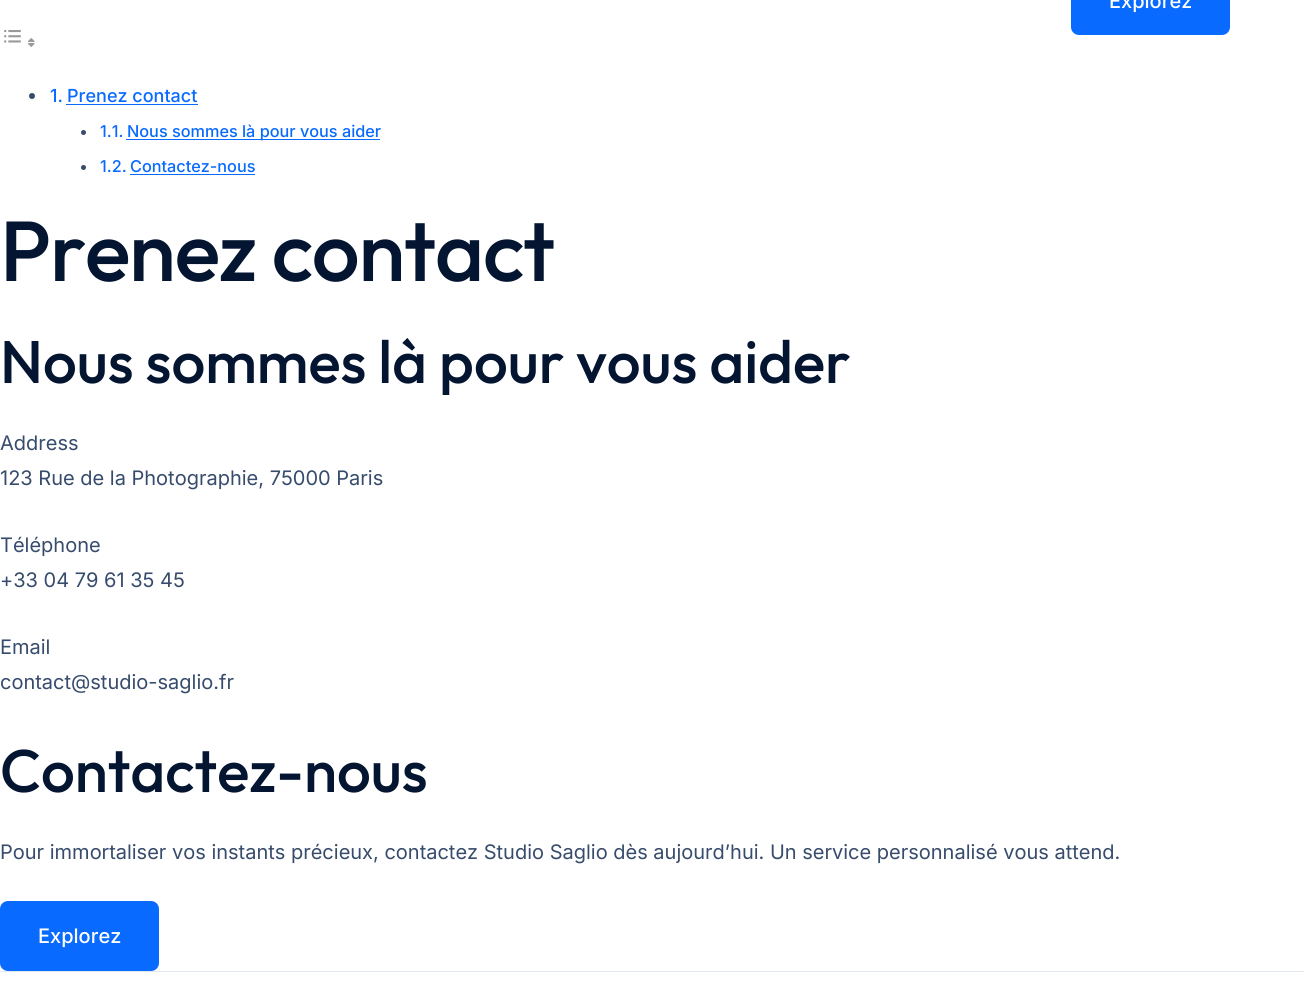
import math
import cairocffi as cairo

surface = cairo.ImageSurface(cairo.FORMAT_RGB24, 1304, 1004)
cr = cairo.Context(surface)
options = cairo.FontOptions()
options.set_hint_metrics(cairo.HINT_METRICS_OFF)
options.set_hint_style(cairo.HINT_STYLE_NONE)
cr.set_font_options(options)
cr.set_miter_limit(4)


def use_color(code):
    cr.set_source_rgb(*(v / 255 for v in bytes.fromhex(code[-6:])))


def spaced_text(x, y, s, letter, word):
    cr.move_to(x, y)
    for ch in s:
        cr.show_text(ch)
        cr.rel_move_to(letter + word * (ch == ' '), 0)


def round_rect(x, y, w, h, r):
    cr.new_sub_path()
    for i, (u, v) in enumerate([(x + w - r, y + h - r), (x + r, y + h - r), (x + r, y + r), (x + w - r, y + r)]):
        cr.arc(u, v, r, i * math.pi / 2, (i + 1) * math.pi / 2)
    cr.close_path()


def picture(path, x, y, w, h):
    cr.save()
    cr.set_source_surface(cairo.ImageSurface.create_from_png(path), x, y)
    cr.rectangle(x, y, w, h)
    cr.fill()
    cr.restore()


use_color("#ffffff")
cr.paint()
use_color("#086afe")
round_rect(1072.5, -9.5, 156, 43, 6.5)
cr.fill_preserve()
cr.set_line_width(3)
cr.stroke()
cr.select_font_face("Inter Medium")
cr.set_font_size(20)
use_color("#ffffff")
cr.move_to(1109, 8)
cr.show_text("Explorez")
picture("img1.png", 4, 30, 17, 13)
picture("img2.png", 27, 38, 8, 9)
use_color("#374c6c")
cr.arc(32, 96, 3, 0, 2 * math.pi)
cr.fill()
cr.set_font_size(18)
use_color("#086afe")
cr.move_to(50, 102)
cr.show_text("1.")
cr.move_to(67, 102)
cr.show_text("Prenez contact")
cr.rectangle(66, 104, 132, 1)
cr.fill()
use_color("#374c6c")
cr.arc(83.5, 132.5, 2.5, 0, 2 * math.pi)
cr.fill()
cr.set_font_size(16.25)
use_color("#086afe")
cr.move_to(100, 137)
cr.show_text("1.1.")
cr.rectangle(126, 139, 254, 1)
cr.fill()
cr.move_to(127, 137)
cr.show_text("Nous sommes là pour vous aider")
use_color("#374c6c")
cr.new_path()
cr.arc(83.5, 167.5, 2.5, 0, 2 * math.pi)
cr.fill()
use_color("#086afe")
cr.move_to(100, 172)
cr.show_text("1.2.")
cr.move_to(130, 172)
cr.show_text("Contactez-nous")
cr.rectangle(130, 174, 125, 1)
cr.fill()
cr.select_font_face("Outfit Medium")
cr.set_font_size(85)
use_color("#031530")
spaced_text(0, 281, "Prenez contact", -1.25, 0)
cr.set_font_size(60)
cr.move_to(0, 383)
cr.show_text("Nous sommes là pour vous aider")
cr.select_font_face("Inter")
cr.set_font_size(20)
use_color("#374c6c")
cr.move_to(0, 450)
cr.show_text("Address")
cr.move_to(0, 485)
cr.show_text("123 Rue de la Photographie, 75000 Paris")
cr.move_to(0, 552)
cr.show_text("Téléphone")
cr.move_to(0, 587)
cr.show_text("+33 04 79 61 35 45")
cr.move_to(0, 654)
cr.show_text("Email")
cr.move_to(0, 689)
cr.show_text("contact@studio-saglio.fr")
cr.select_font_face("Outfit Medium")
cr.set_font_size(60)
use_color("#031530")
cr.move_to(0, 792)
cr.show_text("Contactez-nous")
cr.select_font_face("Inter")
cr.set_font_size(20)
use_color("#374c6c")
cr.move_to(0, 859)
cr.show_text("Pour immortaliser vos instants précieux, contactez Studio Saglio dès aujourd’hui. Un service personnalisé vous attend.")
use_color("#086afe")
round_rect(1.5, 902.5, 156, 67, 6.5)
cr.fill_preserve()
cr.stroke()
cr.select_font_face("Inter Medium")
use_color("#ffffff")
cr.move_to(38, 943)
cr.show_text("Explorez")
use_color("#e2e8f0")
cr.rectangle(0, 971, 1304, 1)
cr.fill()
surface.write_to_png("result.png")
